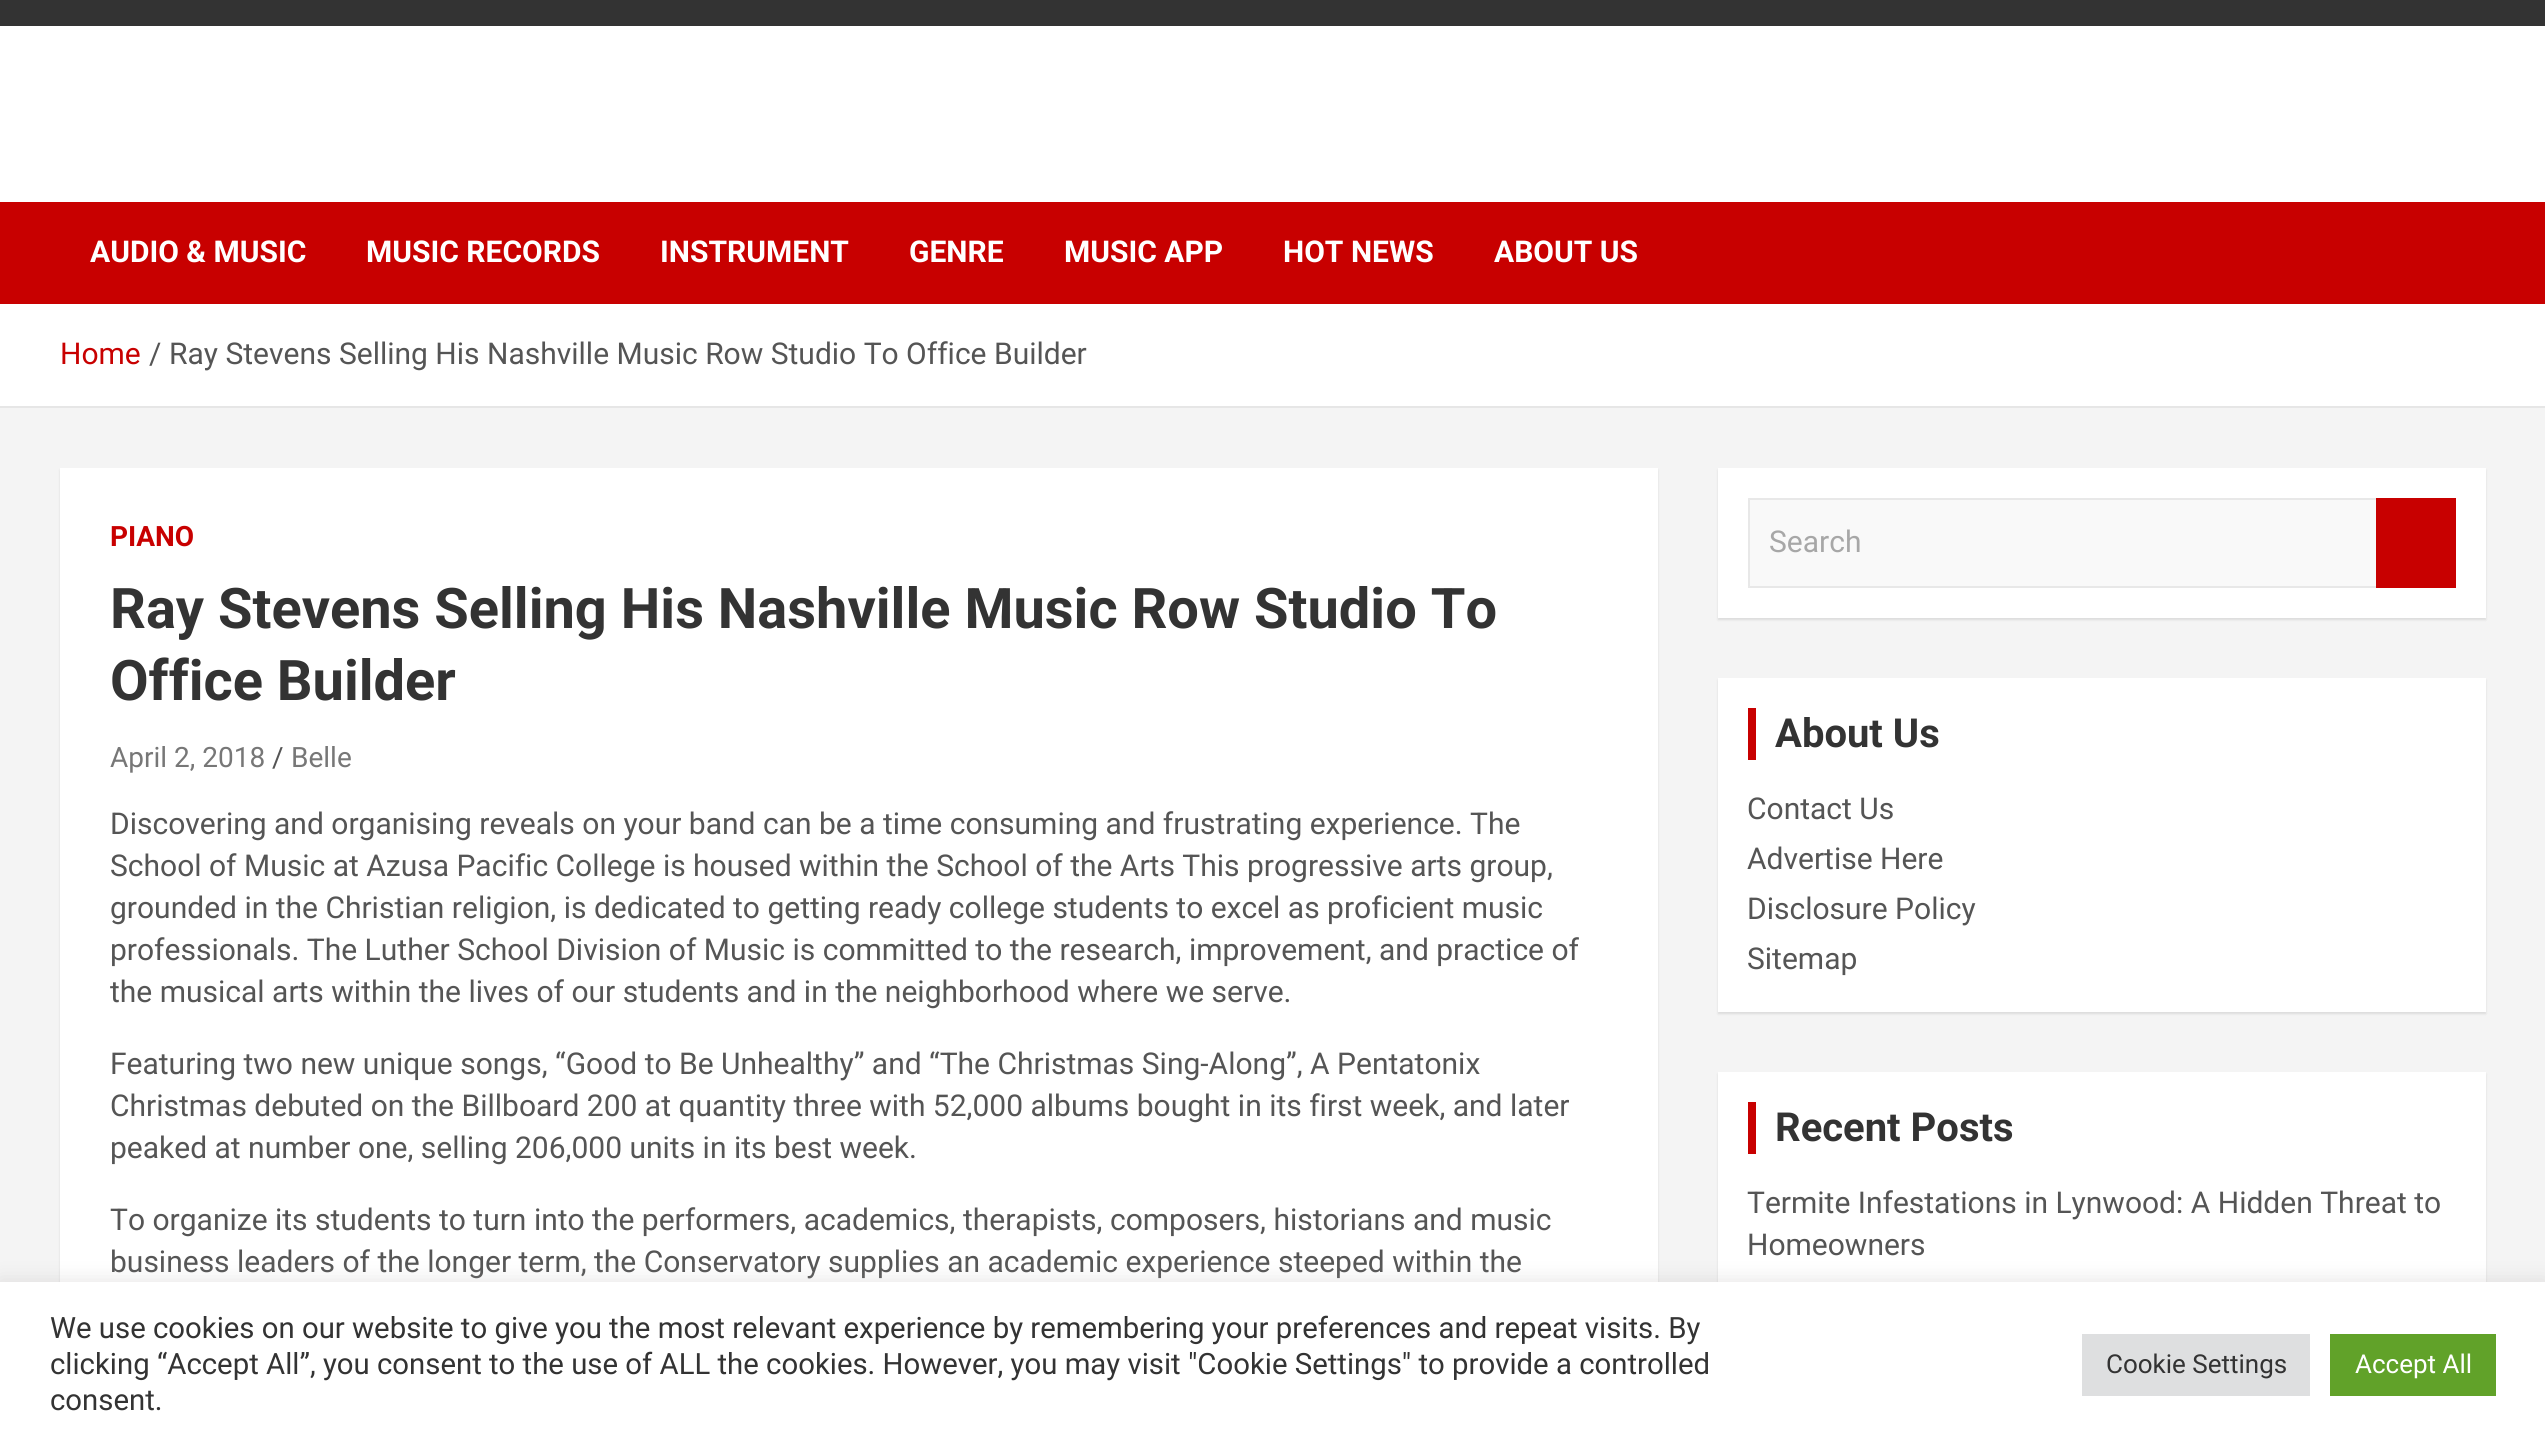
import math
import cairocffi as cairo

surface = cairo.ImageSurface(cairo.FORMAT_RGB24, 2545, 1445)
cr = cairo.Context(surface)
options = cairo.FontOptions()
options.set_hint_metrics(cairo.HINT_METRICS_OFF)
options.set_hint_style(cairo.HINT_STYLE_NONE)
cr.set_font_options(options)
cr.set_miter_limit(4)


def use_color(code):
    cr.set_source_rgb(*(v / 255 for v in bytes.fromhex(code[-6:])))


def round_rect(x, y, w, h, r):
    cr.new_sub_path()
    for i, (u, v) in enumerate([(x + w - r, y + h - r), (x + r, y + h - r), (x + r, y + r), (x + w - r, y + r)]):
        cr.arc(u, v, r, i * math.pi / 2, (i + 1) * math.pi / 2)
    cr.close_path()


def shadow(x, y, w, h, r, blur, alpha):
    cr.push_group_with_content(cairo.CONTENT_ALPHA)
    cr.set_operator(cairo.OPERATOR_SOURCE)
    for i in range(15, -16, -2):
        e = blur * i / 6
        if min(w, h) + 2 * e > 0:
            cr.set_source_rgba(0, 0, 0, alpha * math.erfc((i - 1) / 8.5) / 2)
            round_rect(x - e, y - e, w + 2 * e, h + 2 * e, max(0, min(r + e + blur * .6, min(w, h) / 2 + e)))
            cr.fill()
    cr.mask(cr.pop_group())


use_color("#f4f4f4")
cr.paint()
use_color("#333333")
cr.rectangle(0, 0, 2545, 26)
cr.fill()
use_color("#ffffff")
cr.rectangle(0, 26, 2545, 176)
cr.fill()
use_color("#c80000")
cr.rectangle(0, 202, 2545, 102)
cr.fill()
cr.select_font_face("Roboto", cairo.FONT_SLANT_NORMAL, cairo.FONT_WEIGHT_BOLD)
cr.set_font_size(30)
use_color("#ffffff")
cr.move_to(90, 262)
cr.show_text("AUDIO & MUSIC")
cr.move_to(366, 262)
cr.show_text("MUSIC RECORDS")
cr.move_to(660, 262)
cr.show_text("INSTRUMENT")
cr.move_to(909, 262)
cr.show_text("GENRE")
cr.move_to(1064, 262)
cr.show_text("MUSIC APP")
cr.move_to(1283, 262)
cr.show_text("HOT NEWS")
cr.move_to(1494, 262)
cr.show_text("ABOUT US")
cr.rectangle(0, 304, 2545, 102)
cr.fill()
use_color("#e6e6e6")
cr.rectangle(0, 406, 2545, 2)
cr.fill()
cr.select_font_face("Roboto")
use_color("#c80000")
cr.move_to(60, 364)
cr.show_text("Home")
use_color("#555555")
cr.move_to(149, 364)
cr.show_text("/")
cr.move_to(169, 364)
cr.show_text("Ray Stevens Selling His Nashville Music Row Studio To Office Builder")
use_color("#000000")
shadow(60, 470, 1598, 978, 0, 1, 0.1)
use_color("#ffffff")
cr.rectangle(60, 468, 1598, 814)
cr.fill()
cr.select_font_face("Roboto", cairo.FONT_SLANT_NORMAL, cairo.FONT_WEIGHT_BOLD)
cr.set_font_size(28)
use_color("#c80000")
cr.move_to(110, 546)
cr.show_text("PIANO")
cr.set_font_size(56)
use_color("#333333")
cr.move_to(110, 628)
cr.show_text("Ray Stevens Selling His Nashville Music Row Studio To")
cr.move_to(110, 700)
cr.show_text("Office Builder")
cr.select_font_face("Roboto")
cr.set_font_size(28)
use_color("#777777")
cr.move_to(110, 767)
cr.show_text("April 2, 2018")
use_color("#555555")
cr.move_to(272, 767)
cr.show_text("/")
use_color("#777777")
cr.move_to(291, 767)
cr.show_text("Belle")
cr.set_font_size(30)
use_color("#555555")
cr.move_to(110, 834)
cr.show_text("Discovering and organising reveals on your band can be a time consuming and frustrating experience. The")
cr.move_to(110, 876)
cr.show_text("School of Music at Azusa Pacific College is housed within the School of the Arts This progressive arts group,")
cr.move_to(110, 918)
cr.show_text("grounded in the Christian religion, is dedicated to getting ready college students to excel as proficient music")
cr.move_to(110, 960)
cr.show_text("professionals. The Luther School Division of Music is committed to the research, improvement, and practice of")
cr.move_to(110, 1002)
cr.show_text("the musical arts within the lives of our students and in the neighborhood where we serve.")
cr.move_to(110, 1074)
cr.show_text("Featuring two new unique songs, “Good to Be Unhealthy” and “The Christmas Sing-Along”, A Pentatonix")
cr.move_to(110, 1116)
cr.show_text("Christmas debuted on the Billboard 200 at quantity three with 52,000 albums bought in its first week, and later")
cr.move_to(110, 1158)
cr.show_text("peaked at number one, selling 206,000 units in its best week.")
cr.move_to(110, 1230)
cr.show_text("To organize its students to turn into the performers, academics, therapists, composers, historians and music")
cr.move_to(110, 1272)
cr.show_text("business leaders of the longer term, the Conservatory supplies an academic experience steeped within the")
use_color("#000000")
shadow(1718, 470, 768, 150, 0, 1, 0.1)
use_color("#ffffff")
cr.rectangle(1718, 468, 768, 150)
cr.fill()
use_color("#f9f9f9")
cr.rectangle(1750, 500, 626, 86)
cr.fill()
use_color("#e8e8e8")
cr.new_path()
cr.move_to(1748, 498)
cr.line_to(2376, 498)
cr.line_to(2376, 500)
cr.line_to(1750, 500)
cr.close_path()
cr.fill()
cr.new_path()
cr.move_to(2376, 588)
cr.line_to(1748, 588)
cr.line_to(1750, 586)
cr.line_to(2376, 586)
cr.close_path()
cr.fill()
cr.set_source_rgba(0, 0, 0, 0.09)
cr.new_path()
cr.move_to(1748, 588)
cr.line_to(1748, 498)
cr.line_to(1750, 500)
cr.line_to(1750, 586)
cr.close_path()
cr.fill()
use_color("#a7a7a7")
cr.move_to(1769, 552)
cr.show_text("Search")
use_color("#c80000")
cr.rectangle(2376, 498, 80, 90)
cr.fill()
use_color("#000000")
shadow(1718, 680, 768, 334, 0, 1, 0.1)
use_color("#ffffff")
cr.rectangle(1718, 678, 768, 334)
cr.fill()
use_color("#c80000")
cr.rectangle(1748, 708, 8, 52)
cr.fill()
cr.select_font_face("Roboto", cairo.FONT_SLANT_NORMAL, cairo.FONT_WEIGHT_BOLD)
cr.set_font_size(40)
use_color("#333333")
cr.move_to(1775, 747)
cr.show_text("About Us")
cr.select_font_face("Roboto")
cr.set_font_size(30)
use_color("#555555")
cr.move_to(1747, 819)
cr.show_text("Contact Us")
cr.move_to(1747, 869)
cr.show_text("Advertise Here")
cr.move_to(1747, 919)
cr.show_text("Disclosure Policy")
cr.move_to(1747, 969)
cr.show_text("Sitemap")
use_color("#000000")
shadow(1718, 1074, 768, 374, 0, 1, 0.1)
use_color("#ffffff")
cr.rectangle(1718, 1072, 768, 210)
cr.fill()
use_color("#c80000")
cr.rectangle(1748, 1102, 8, 52)
cr.fill()
cr.select_font_face("Roboto", cairo.FONT_SLANT_NORMAL, cairo.FONT_WEIGHT_BOLD)
cr.set_font_size(40)
use_color("#333333")
cr.move_to(1775, 1141)
cr.show_text("Recent Posts")
cr.select_font_face("Roboto")
cr.set_font_size(30)
use_color("#555555")
cr.move_to(1747, 1213)
cr.show_text("Termite Infestations in Lynwood: A Hidden Threat to")
cr.move_to(1747, 1255)
cr.show_text("Homeowners")
use_color("#acabab")
shadow(0, 1280, 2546, 164, 0, 10, 0.3)
use_color("#ffffff")
cr.rectangle(0, 1282, 2545, 163)
cr.fill()
cr.set_font_size(29.33)
use_color("#333333")
cr.move_to(50, 1338)
cr.show_text("We use cookies on our website to give you the most relevant experience by remembering your preferences and repeat visits. By")
cr.move_to(50, 1374)
cr.show_text("clicking “Accept All”, you consent to the use of ALL the cookies. However, you may visit \"Cookie Settings\" to provide a controlled")
cr.move_to(50, 1410)
cr.show_text("consent.")
use_color("#dedfe0")
cr.rectangle(2082, 1334, 228, 62)
cr.fill()
cr.set_font_size(26)
use_color("#333333")
cr.move_to(2106, 1373)
cr.show_text("Cookie Settings")
use_color("#61a229")
cr.rectangle(2330, 1334, 166, 62)
cr.fill()
use_color("#ffffff")
cr.move_to(2355, 1373)
cr.show_text("Accept All")
surface.write_to_png("result.png")
